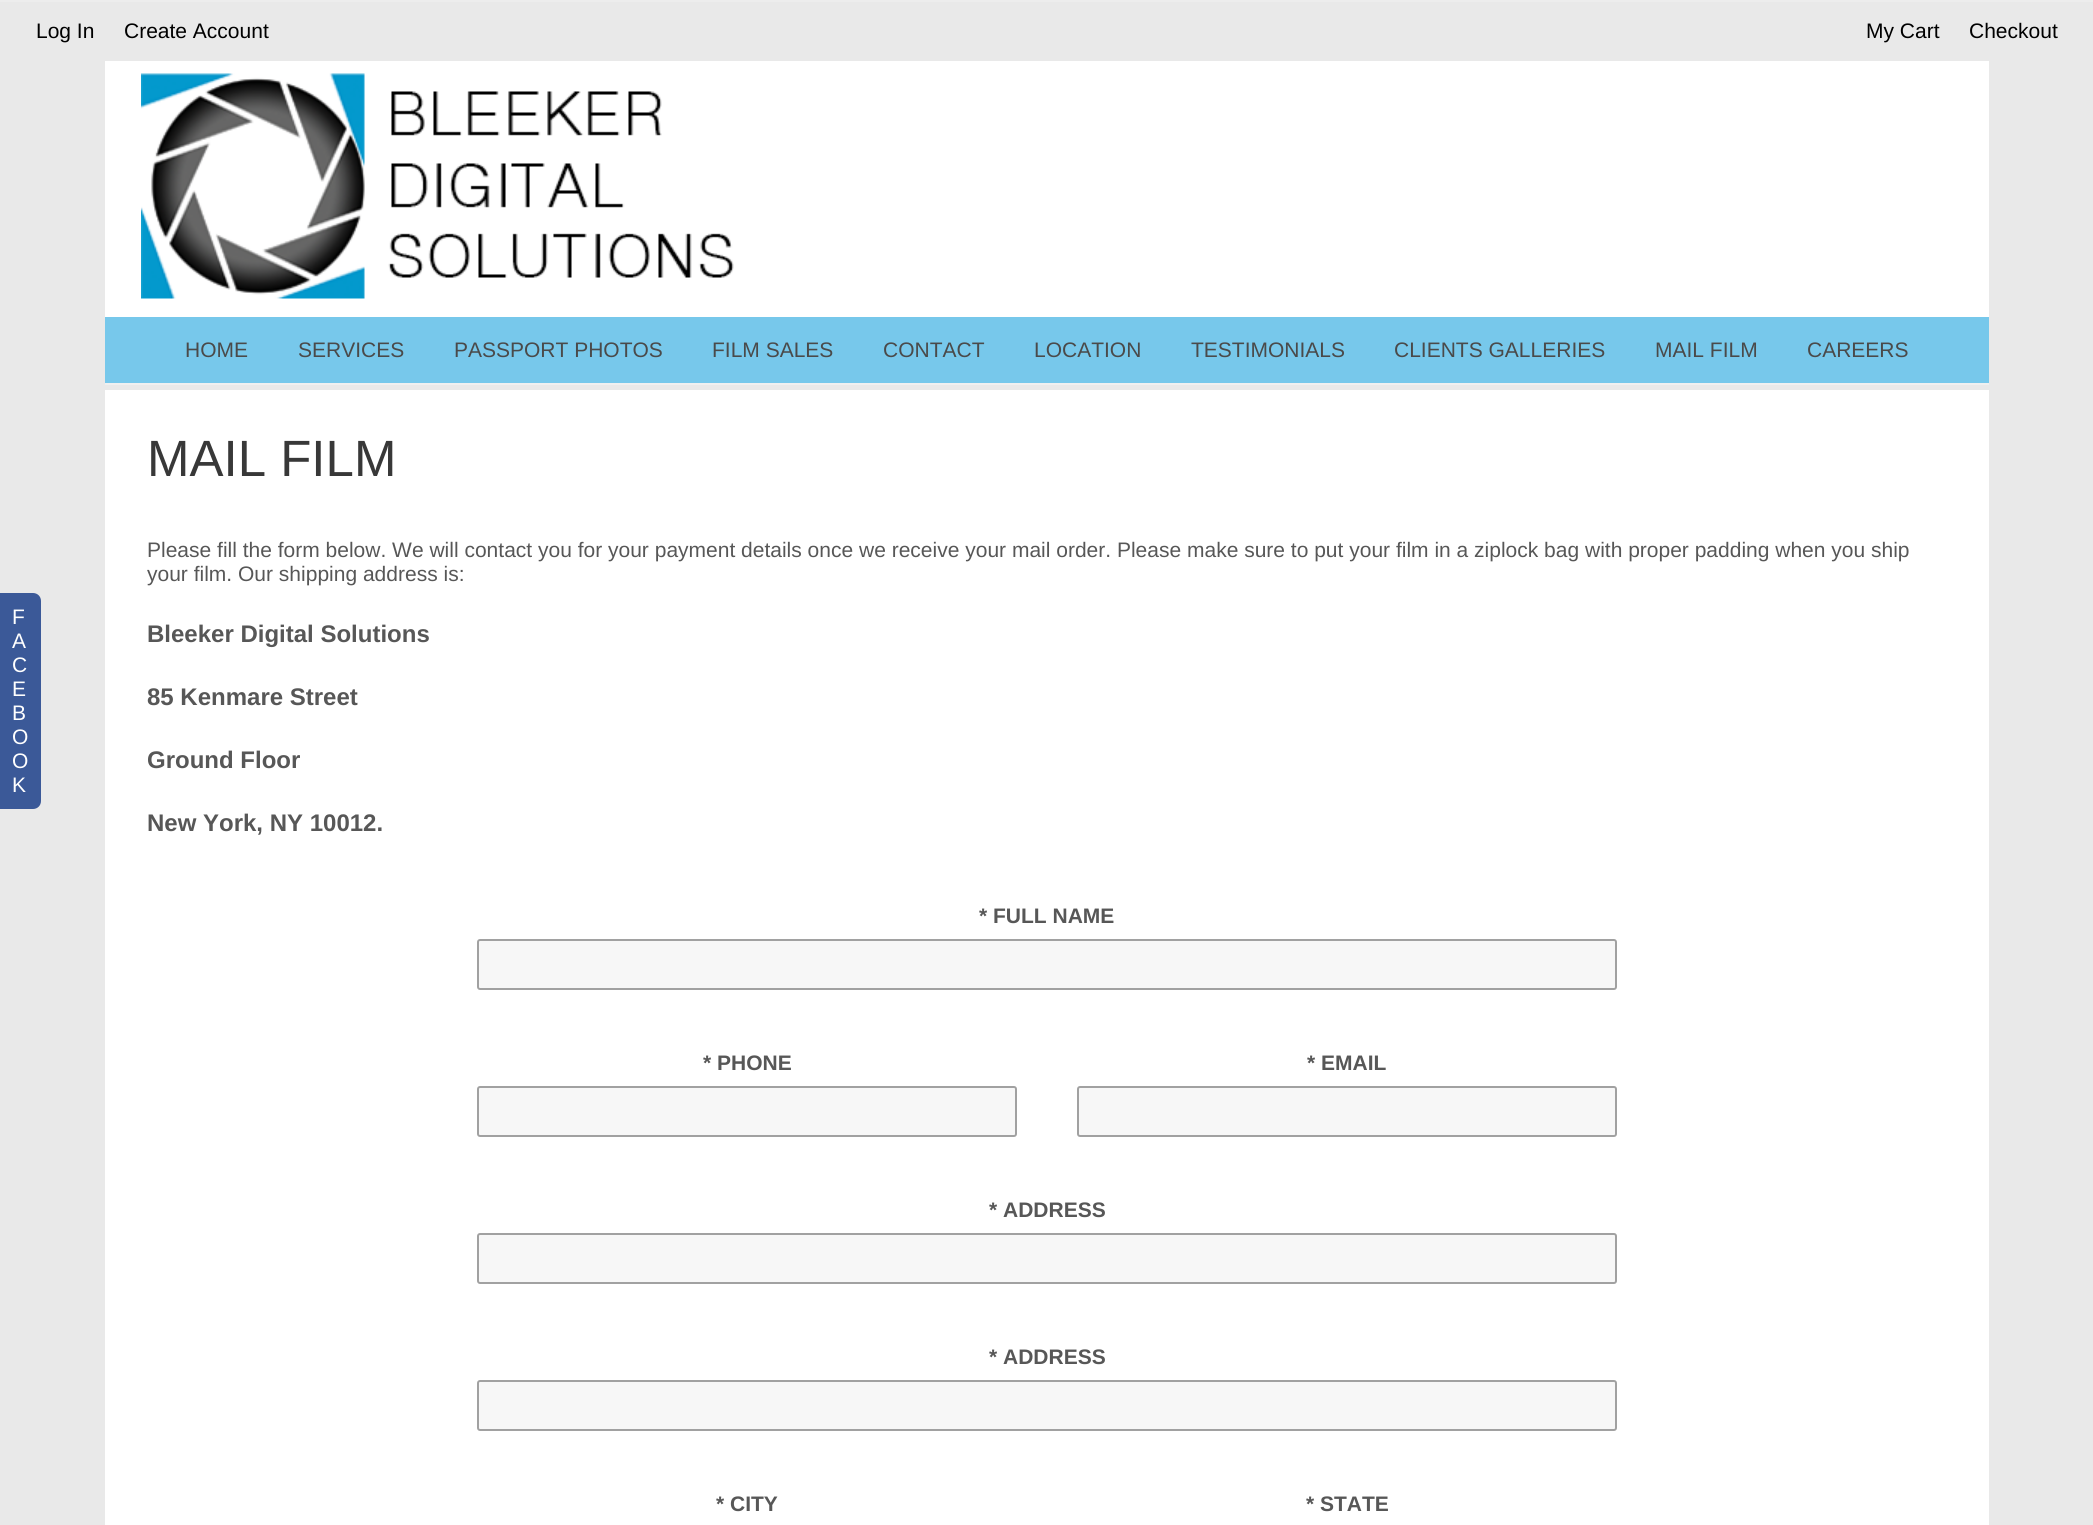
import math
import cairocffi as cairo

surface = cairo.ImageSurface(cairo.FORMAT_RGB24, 2093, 1525)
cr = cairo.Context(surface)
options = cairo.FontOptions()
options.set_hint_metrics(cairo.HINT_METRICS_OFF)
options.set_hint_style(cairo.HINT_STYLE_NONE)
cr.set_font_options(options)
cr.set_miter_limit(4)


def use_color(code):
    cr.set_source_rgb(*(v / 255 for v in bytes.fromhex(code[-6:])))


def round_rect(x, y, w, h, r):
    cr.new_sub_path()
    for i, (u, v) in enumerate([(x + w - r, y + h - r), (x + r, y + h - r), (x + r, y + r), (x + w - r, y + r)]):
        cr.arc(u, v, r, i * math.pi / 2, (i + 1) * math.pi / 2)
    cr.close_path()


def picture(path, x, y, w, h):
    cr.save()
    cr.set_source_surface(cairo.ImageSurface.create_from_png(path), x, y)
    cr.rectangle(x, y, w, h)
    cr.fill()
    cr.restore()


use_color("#e9e9e9")
cr.paint()
use_color("#ededed")
cr.rectangle(0, 0, 2093, 2)
cr.fill()
cr.select_font_face("Liberation Sans")
cr.set_font_size(21)
use_color("#000000")
cr.move_to(36, 38)
cr.show_text("Log In")
cr.move_to(124, 38)
cr.show_text("Create Account")
cr.move_to(1866, 38)
cr.show_text("My Cart")
cr.move_to(1969, 38)
cr.show_text("Checkout")
use_color("#ffffff")
cr.rectangle(105, 61, 1884, 256)
cr.fill()
picture("img1.png", 141, 73, 593, 226)
use_color("#77c8eb")
cr.rectangle(105, 317, 1884, 66)
cr.fill()
use_color("#f0f0f0")
cr.rectangle(105, 383, 1884, 2)
cr.fill()
use_color("#4a4a4a")
cr.move_to(185, 357)
cr.show_text("HOME")
cr.move_to(298, 357)
cr.show_text("SERVICES")
cr.move_to(454, 357)
cr.show_text("PASSPORT PHOTOS")
cr.move_to(712, 357)
cr.show_text("FILM SALES")
cr.move_to(883, 357)
cr.show_text("CONTACT")
cr.move_to(1034, 357)
cr.show_text("LOCATION")
cr.move_to(1191, 357)
cr.show_text("TESTIMONIALS")
cr.move_to(1394, 357)
cr.show_text("CLIENTS GALLERIES")
cr.move_to(1655, 357)
cr.show_text("MAIL FILM")
cr.move_to(1807, 357)
cr.show_text("CAREERS")
use_color("#3b5998")
cr.new_path()
cr.move_to(0, 593)
cr.line_to(33, 593)
cr.curve_to(37.5, 593, 41, 596.5, 41, 601)
cr.line_to(41, 801)
cr.curve_to(41, 805.5, 37.5, 809, 33, 809)
cr.line_to(0, 809)
cr.close_path()
cr.fill()
use_color("#ffffff")
cr.move_to(12, 624)
cr.show_text("F")
cr.move_to(12, 648)
cr.show_text("A")
cr.move_to(12, 672)
cr.show_text("C")
cr.move_to(12, 696)
cr.show_text("E")
cr.move_to(12, 720)
cr.show_text("B")
cr.move_to(12, 744)
cr.show_text("O")
cr.move_to(12, 768)
cr.show_text("O")
cr.move_to(12, 792)
cr.show_text("K")
cr.rectangle(105, 390, 1884, 1135)
cr.fill()
cr.set_font_size(51)
use_color("#383838")
cr.move_to(147, 476)
cr.show_text("MAIL FILM")
cr.set_font_size(21)
use_color("#575757")
cr.move_to(147, 557)
cr.show_text("Please fill the form below. We will contact you for your payment details once we receive your mail order. Please make sure to put your film in a ziplock bag with proper padding when you ship")
cr.move_to(147, 581)
cr.show_text("your film. Our shipping address is:")
cr.select_font_face("Liberation Sans", cairo.FONT_SLANT_NORMAL, cairo.FONT_WEIGHT_BOLD)
cr.set_font_size(24)
cr.move_to(147, 642)
cr.show_text("Bleeker Digital Solutions")
cr.move_to(147, 705)
cr.show_text("85 Kenmare Street")
cr.move_to(147, 768)
cr.show_text("Ground Floor")
cr.move_to(147, 831)
cr.show_text("New York, NY 10012.")
cr.set_font_size(21)
cr.move_to(979, 923)
cr.show_text("* FULL NAME")
use_color("#f7f7f7")
round_rect(478, 940, 1138, 49, 2)
cr.fill_preserve()
use_color("#a1a1a1")
cr.stroke()
use_color("#575757")
cr.move_to(703, 1070)
cr.show_text("* PHONE")
use_color("#f7f7f7")
round_rect(478, 1087, 538, 49, 2)
cr.fill_preserve()
use_color("#a1a1a1")
cr.stroke()
use_color("#575757")
cr.move_to(1307, 1070)
cr.show_text("* EMAIL")
use_color("#f7f7f7")
round_rect(1078, 1087, 538, 49, 2)
cr.fill_preserve()
use_color("#a1a1a1")
cr.stroke()
use_color("#575757")
cr.move_to(989, 1217)
cr.show_text("* ADDRESS")
use_color("#f7f7f7")
round_rect(478, 1234, 1138, 49, 2)
cr.fill_preserve()
use_color("#a1a1a1")
cr.stroke()
use_color("#575757")
cr.move_to(989, 1364)
cr.show_text("* ADDRESS")
use_color("#f7f7f7")
round_rect(478, 1381, 1138, 49, 2)
cr.fill_preserve()
use_color("#a1a1a1")
cr.stroke()
use_color("#575757")
cr.move_to(716, 1511)
cr.show_text("* CITY")
cr.move_to(1306, 1511)
cr.show_text("* STATE")
surface.write_to_png("result.png")
